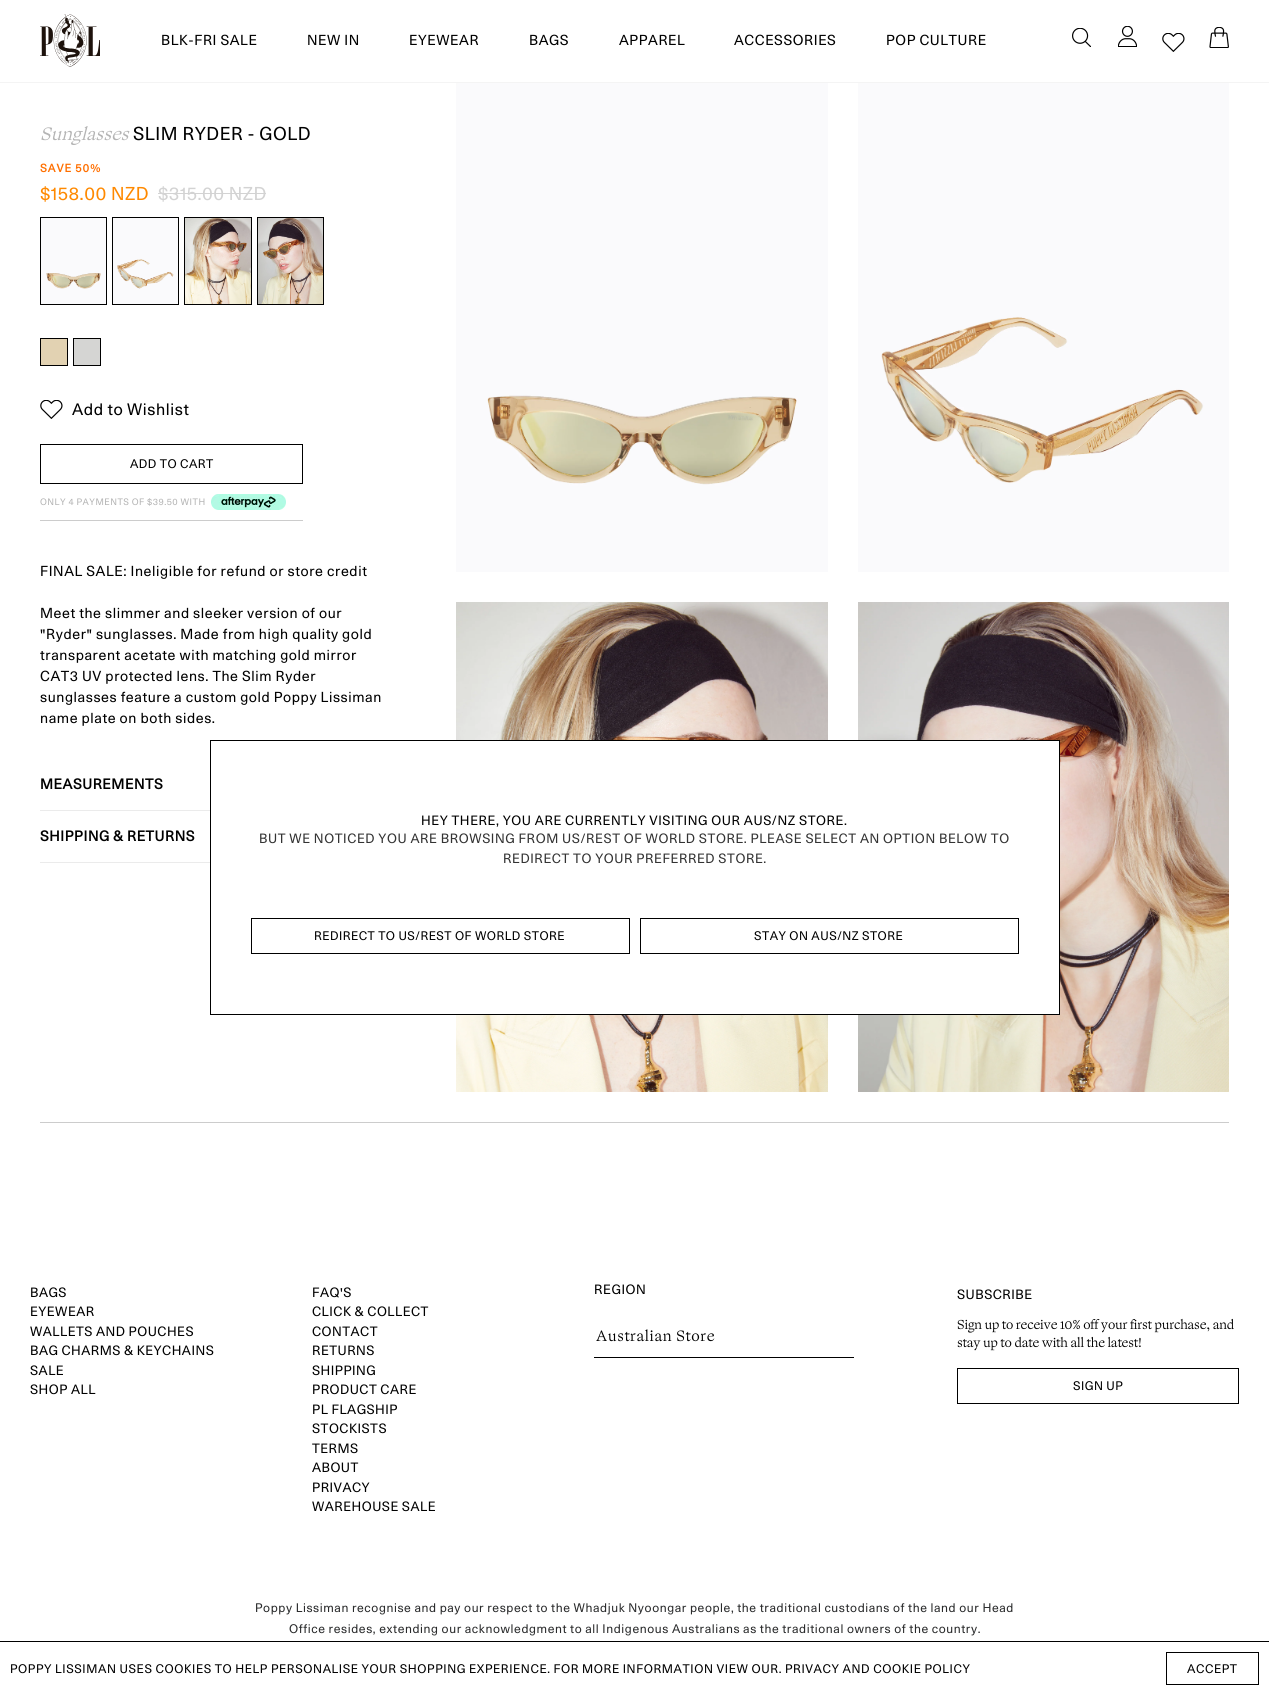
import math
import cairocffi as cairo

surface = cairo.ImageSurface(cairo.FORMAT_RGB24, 1269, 1695)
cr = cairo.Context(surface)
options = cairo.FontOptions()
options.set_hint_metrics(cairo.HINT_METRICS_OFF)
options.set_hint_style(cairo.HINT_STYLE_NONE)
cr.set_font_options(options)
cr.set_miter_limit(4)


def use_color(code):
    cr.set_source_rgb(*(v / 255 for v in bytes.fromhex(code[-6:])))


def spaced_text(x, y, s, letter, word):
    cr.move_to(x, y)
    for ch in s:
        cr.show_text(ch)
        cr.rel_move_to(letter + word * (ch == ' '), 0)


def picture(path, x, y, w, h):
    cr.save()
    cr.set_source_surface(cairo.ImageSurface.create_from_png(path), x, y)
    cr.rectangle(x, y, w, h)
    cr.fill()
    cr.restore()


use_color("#ffffff")
cr.paint()
use_color("#f4f4f4")
cr.rectangle(0, 82, 1269, 1)
cr.fill()
picture("img1.png", 40, 14, 60, 53)
cr.select_font_face("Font")
cr.set_font_size(14)
use_color("#000000")
spaced_text(161, 45, "BLK-FRI SALE", 0.6, 0)
spaced_text(307, 45, "NEW IN", 0.6, 0)
spaced_text(409, 45, "EYEWEAR", 0.6, 0)
spaced_text(529, 45, "BAGS", 0.6, 0)
spaced_text(619, 45, "APPAREL", 0.6, 0)
spaced_text(734, 45, "ACCESSORIES", 0.6, 0)
spaced_text(886, 45, "POP CULTURE", 0.6, 0)
picture("img2.png", 1072, 28, 19, 19)
picture("img3.png", 1118, 26, 19, 21)
picture("img4.png", 1162, 33, 23, 19)
picture("img5.png", 1209, 27, 20, 21)
cr.select_font_face("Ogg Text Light", cairo.FONT_SLANT_ITALIC)
cr.set_font_size(18)
use_color("#b4b4b4")
cr.move_to(40, 140)
cr.show_text("Sunglasses")
cr.select_font_face("Font")
use_color("#000000")
spaced_text(133, 140, "SLIM RYDER - GOLD", 0.6, 0)
cr.select_font_face("Font", cairo.FONT_SLANT_NORMAL, cairo.FONT_WEIGHT_BOLD)
cr.set_font_size(11)
use_color("#ff6f00")
spaced_text(40, 172, "SAVE 50%", 1, 0)
cr.select_font_face("Font")
cr.set_font_size(18)
use_color("#ff8900")
spaced_text(40, 200, "$158.00 NZD", 0.5, 0)
use_color("#d3d3d3")
spaced_text(158, 200, "$315.00 NZD", 0.5, 0)
cr.rectangle(158, 193, 108, 1)
cr.fill()
cr.rectangle(40.5, 217.5, 66, 87)
use_color("#000000")
cr.set_line_width(1)
cr.stroke()
picture("img6.png", 41, 218, 65, 86)
cr.rectangle(112.5, 217.5, 66, 87)
cr.stroke()
picture("img7.png", 113, 218, 65, 86)
cr.rectangle(184.5, 217.5, 67, 87)
cr.stroke()
picture("img8.png", 185, 218, 66, 86)
cr.rectangle(257.5, 217.5, 66, 87)
cr.stroke()
picture("img9.png", 258, 218, 65, 86)
cr.rectangle(40.5, 338.5, 27, 27)
cr.stroke()
use_color("#e2d2b2")
cr.rectangle(41, 339, 26, 26)
cr.fill()
cr.rectangle(73.5, 338.5, 27, 27)
use_color("#000000")
cr.stroke()
use_color("#d5d5d3")
cr.rectangle(74, 339, 26, 26)
cr.fill()
picture("img4.png", 40, 400, 23, 19)
cr.set_font_size(16)
use_color("#000000")
spaced_text(72, 415, "Add to Wishlist", 0.6, 0)
cr.rectangle(40.5, 444.5, 262, 39)
cr.stroke()
cr.set_font_size(12)
spaced_text(130, 468, "ADD TO CART", 0.5, 0)
cr.set_font_size(9)
use_color("#b4b4b4")
spaced_text(40, 505, "ONLY 4 PAYMENTS OF $39.50 WITH", 0.5, 0)
picture("img10.png", 211, 494, 75, 16)
use_color("#cccccc")
cr.rectangle(40, 520, 263, 1)
cr.fill()
cr.set_font_size(14)
use_color("#000000")
spaced_text(40, 576, "FINAL SALE: Ineligible for refund or store credit", 0.6, 0)
spaced_text(40, 618, "Meet the slimmer and sleeker version of our", 0.6, 0)
spaced_text(40, 639, "\"Ryder\" sunglasses. Made from high quality gold", 0.6, 0)
spaced_text(40, 660, "transparent acetate with matching gold mirror", 0.6, 0)
spaced_text(40, 681, "CAT3 UV protected lens. The Slim Ryder", 0.6, 0)
spaced_text(40, 702, "sunglasses feature a custom gold Poppy Lissiman", 0.6, 0)
spaced_text(40, 723, "name plate on both sides.", 0.6, 0)
use_color("#ebebeb")
cr.rectangle(40, 810, 170, 1)
cr.fill()
cr.select_font_face("Font", cairo.FONT_SLANT_NORMAL, cairo.FONT_WEIGHT_BOLD)
use_color("#000000")
spaced_text(40, 789, "MEASUREMENTS", 0.6, 0)
use_color("#ebebeb")
cr.rectangle(40, 862, 170, 1)
cr.fill()
use_color("#000000")
spaced_text(40, 841, "SHIPPING & RETURNS", 0.6, 0)
picture("img11.png", 456, 83, 372, 489)
picture("img12.png", 858, 83, 371, 489)
picture("img13.png", 456, 602, 372, 490)
picture("img14.png", 858, 602, 371, 490)
use_color("#cccccc")
cr.rectangle(40, 1122, 1189, 1)
cr.fill()
use_color("#ffffff")
cr.rectangle(456, 741, 603, 273)
cr.fill()
cr.rectangle(210.5, 740.5, 849, 274)
use_color("#000000")
cr.stroke()
cr.select_font_face("Font")
cr.set_font_size(13)
spaced_text(421, 825, "HEY THERE, YOU ARE CURRENTLY VISITING OUR AUS/NZ STORE.", 0.6, 0)
use_color("#333333")
spaced_text(259, 843, "BUT WE NOTICED YOU ARE BROWSING FROM US/REST OF WORLD STORE. PLEASE SELECT AN OPTION BELOW TO", 0.6, 0)
spaced_text(503, 863, "REDIRECT TO YOUR PREFERRED STORE.", 0.6, 0)
cr.rectangle(251.5, 918.5, 378, 35)
use_color("#000000")
cr.stroke()
cr.set_font_size(12)
spaced_text(314, 940, "REDIRECT TO US/REST OF WORLD STORE", 0.5, 0)
cr.rectangle(640.5, 918.5, 378, 35)
cr.stroke()
spaced_text(754, 940, "STAY ON AUS/NZ STORE", 0.5, 0)
cr.set_font_size(13)
spaced_text(30, 1297, "BAGS", 0.5, 0)
spaced_text(30, 1316, "EYEWEAR", 0.5, 0)
spaced_text(30, 1336, "WALLETS AND POUCHES", 0.5, 0)
spaced_text(30, 1355, "BAG CHARMS & KEYCHAINS", 0.5, 0)
spaced_text(30, 1375, "SALE", 0.5, 0)
spaced_text(30, 1394, "SHOP ALL", 0.5, 0)
spaced_text(312, 1297, "FAQ'S", 0.5, 0)
spaced_text(312, 1316, "CLICK & COLLECT", 0.5, 0)
spaced_text(312, 1336, "CONTACT", 0.5, 0)
spaced_text(312, 1355, "RETURNS", 0.5, 0)
spaced_text(312, 1375, "SHIPPING", 0.5, 0)
spaced_text(312, 1394, "PRODUCT CARE", 0.5, 0)
spaced_text(312, 1414, "PL FLAGSHIP", 0.5, 0)
spaced_text(312, 1433, "STOCKISTS", 0.5, 0)
spaced_text(312, 1453, "TERMS", 0.5, 0)
spaced_text(312, 1472, "ABOUT", 0.5, 0)
spaced_text(312, 1492, "PRIVACY", 0.5, 0)
spaced_text(312, 1511, "WAREHOUSE SALE", 0.5, 0)
spaced_text(594, 1294, "REGION", 0.6, 0)
cr.rectangle(594, 1357, 260, 1)
cr.fill()
cr.select_font_face("Ogg Text Light")
cr.set_font_size(15)
spaced_text(596, 1341, "Australian Store", 0.6, 0)
cr.select_font_face("Font")
cr.set_font_size(13)
spaced_text(957, 1299, "SUBSCRIBE", 0.5, 0)
cr.select_font_face("Ogg Text Light")
spaced_text(957, 1329, "Sign up to receive 10% off your first purchase, and", -0.2, 0)
spaced_text(957, 1347, "stay up to date with all the latest!", -0.2, 0)
cr.rectangle(957.5, 1368.5, 281, 35)
cr.stroke()
cr.select_font_face("Font")
cr.set_font_size(12)
spaced_text(1073, 1390, "SIGN UP", 0.5, 0)
use_color("#2a2b2c")
spaced_text(255, 1612, "Poppy Lissiman recognise and pay our respect to the Whadjuk Nyoongar people, the traditional custodians of the land our Head", 0.6, 0)
spaced_text(289, 1633, "Office resides, extending our acknowledgment to all Indigenous Australians as the traditional owners of the country.", 0.6, 0)
use_color("#000000")
cr.rectangle(0, 1641, 1269, 1)
cr.fill()
spaced_text(10, 1673, "POPPY LISSIMAN USES COOKIES TO HELP PERSONALISE YOUR SHOPPING EXPERIENCE. FOR MORE INFORMATION VIEW OUR. PRIVACY AND COOKIE POLICY", 0.6, 0)
cr.rectangle(1166.5, 1652.5, 92, 32)
cr.stroke()
spaced_text(1187, 1673, "ACCEPT", 0.6, 0)
surface.write_to_png("result.png")
